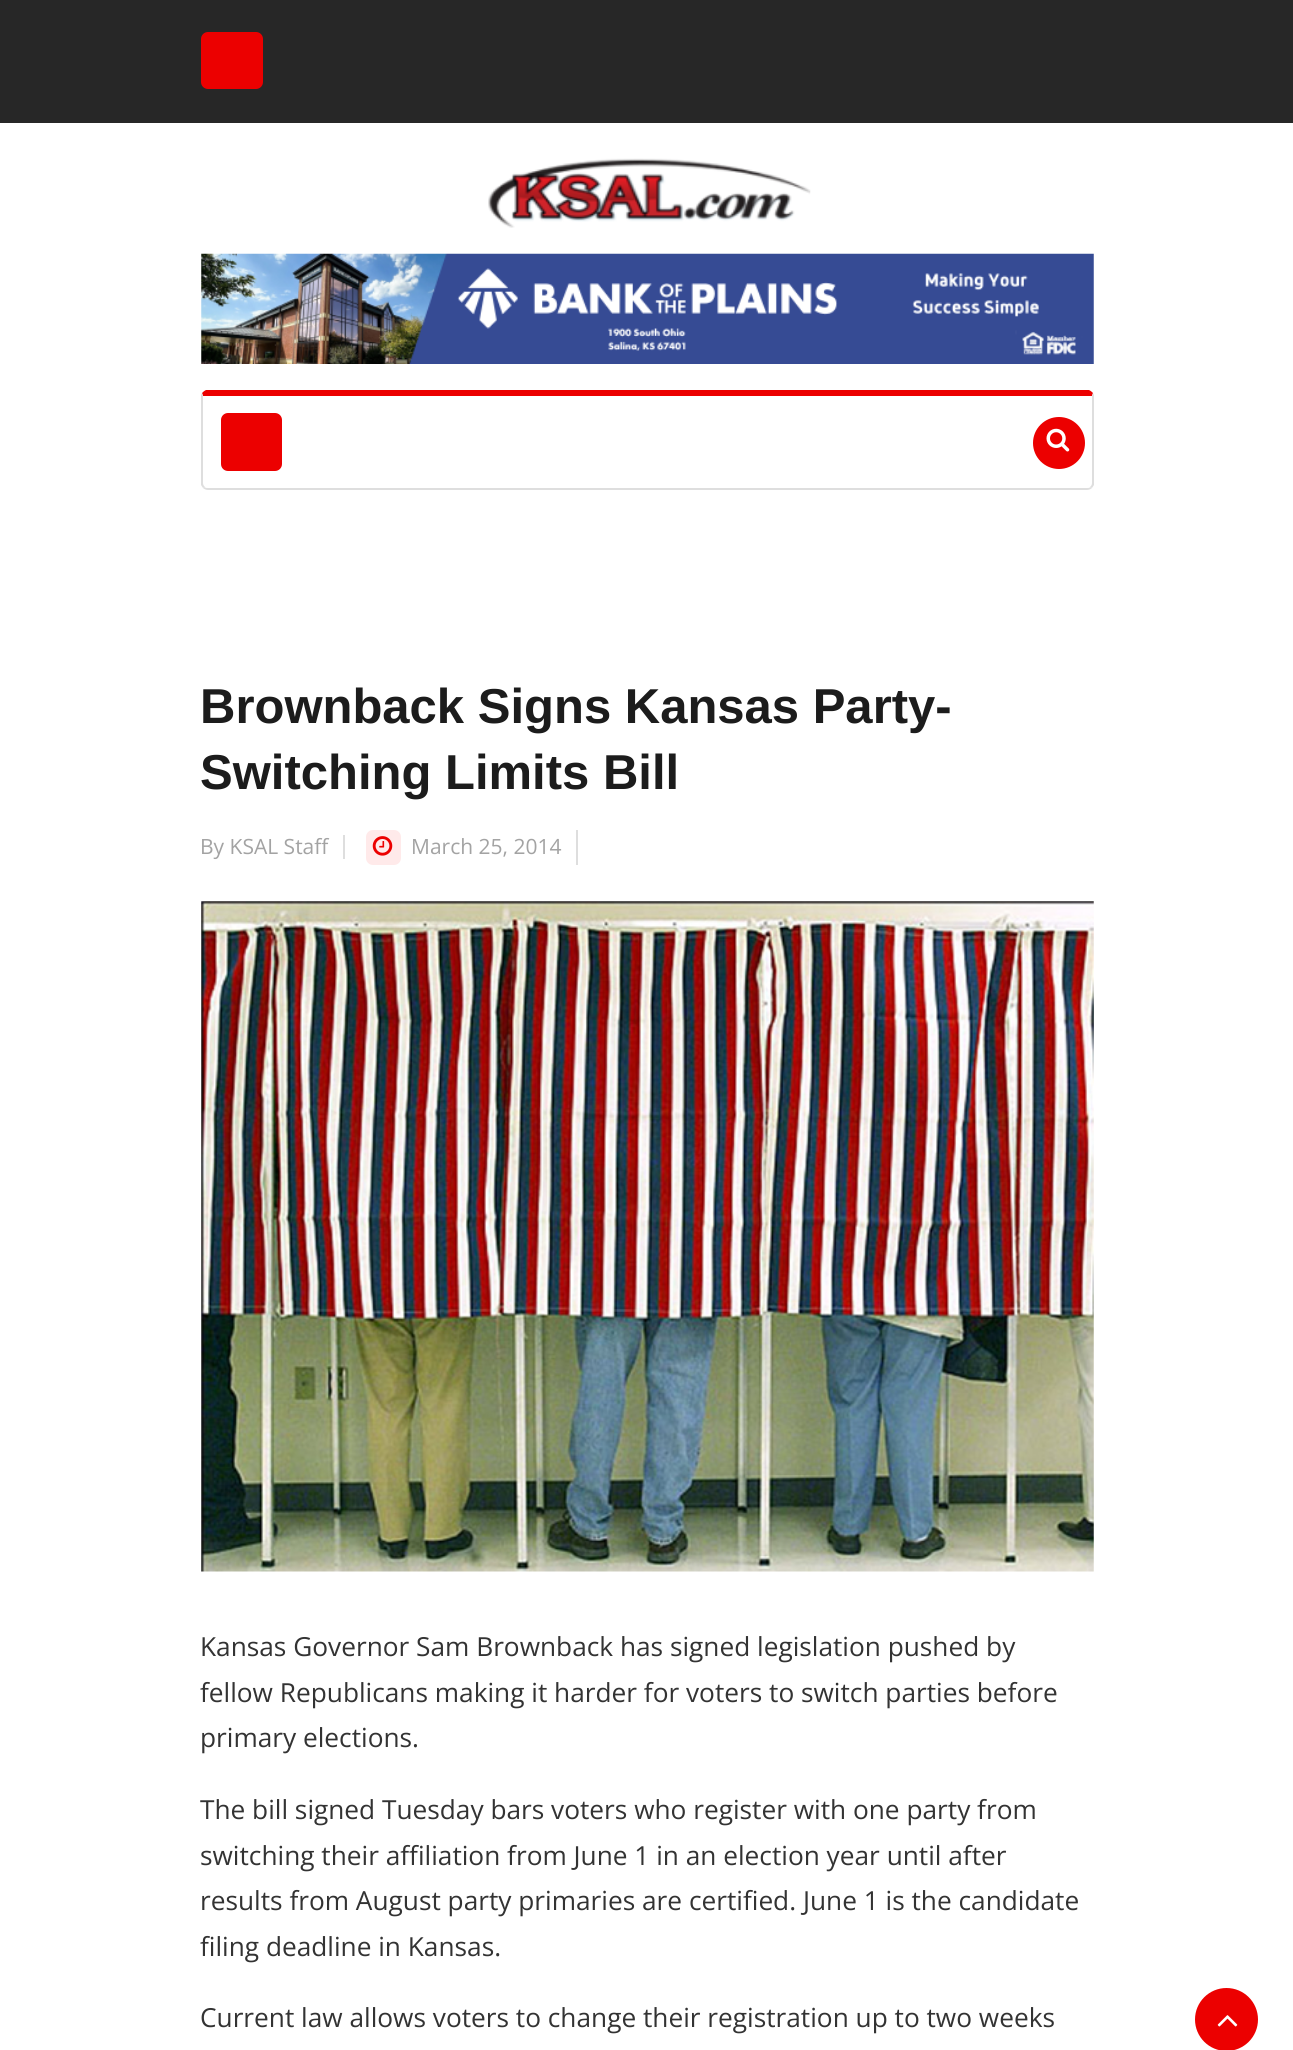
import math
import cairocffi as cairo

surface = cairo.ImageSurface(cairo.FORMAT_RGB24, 1293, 2050)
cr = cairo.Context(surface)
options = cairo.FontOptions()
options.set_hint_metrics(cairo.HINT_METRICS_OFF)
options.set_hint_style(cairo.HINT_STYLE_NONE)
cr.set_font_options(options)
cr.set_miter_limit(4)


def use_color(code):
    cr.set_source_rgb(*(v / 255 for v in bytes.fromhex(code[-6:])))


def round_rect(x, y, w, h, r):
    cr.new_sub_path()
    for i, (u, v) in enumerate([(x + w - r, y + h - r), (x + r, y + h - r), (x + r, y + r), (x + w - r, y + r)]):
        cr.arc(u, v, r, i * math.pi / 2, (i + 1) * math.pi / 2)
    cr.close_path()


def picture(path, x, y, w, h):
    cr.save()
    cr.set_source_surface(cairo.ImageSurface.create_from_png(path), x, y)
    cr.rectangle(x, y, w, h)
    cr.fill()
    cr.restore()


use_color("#ffffff")
cr.paint()
use_color("#272727")
cr.rectangle(0, 0, 1293, 123)
cr.fill()
use_color("#ec0000")
round_rect(201, 32, 62, 57, 7)
cr.fill()
picture("img1.png", 488, 158, 323, 70)
picture("img2.png", 201, 253, 893, 111)
cr.new_path()
cr.move_to(208, 396)
cr.line_to(203, 396)
cr.line_to(202, 393)
cr.curve_to(203, 392, 204, 391, 206, 390)
cr.line_to(1089, 390)
cr.curve_to(1091, 391, 1092, 392, 1093, 393)
cr.line_to(1092, 396)
cr.line_to(1087, 396)
cr.close_path()
cr.fill()
use_color("#dedede")
cr.new_path()
cr.move_to(1094, 485)
cr.line_to(1092, 488)
cr.line_to(1090, 487)
cr.curve_to(1091, 486, 1092, 485, 1092, 483)
cr.line_to(1092, 396)
cr.line_to(1093, 393)
cr.line_to(1094, 395)
cr.close_path()
cr.fill()
cr.new_path()
cr.move_to(208, 490)
cr.line_to(1087, 490)
cr.curve_to(1089, 490, 1091, 489, 1092, 488)
cr.line_to(1090, 487)
cr.curve_to(1090, 488, 1088, 488, 1087, 488)
cr.line_to(208, 488)
cr.curve_to(207, 488, 205, 488, 205, 487)
cr.line_to(203, 488)
cr.curve_to(204, 489, 206, 490, 208, 490)
cr.close_path()
cr.fill()
cr.new_path()
cr.move_to(201, 395)
cr.line_to(202, 393)
cr.line_to(203, 396)
cr.line_to(203, 483)
cr.curve_to(203, 485, 204, 486, 205, 487)
cr.line_to(203, 488)
cr.line_to(201, 485)
cr.close_path()
cr.fill()
use_color("#ec0000")
round_rect(221, 413, 61, 58, 7)
cr.fill()
cr.arc(1059, 443, 26, 0, 2 * math.pi)
cr.fill()
picture("img3.png", 1046, 428, 24, 24)
cr.select_font_face("Arimo", cairo.FONT_SLANT_NORMAL, cairo.FONT_WEIGHT_BOLD)
cr.set_font_size(49)
use_color("#1c1c1c")
cr.move_to(200, 723)
cr.show_text("Brownback Signs Kansas Party-")
cr.move_to(200, 789)
cr.show_text("Switching Limits Bill")
use_color("#dedede")
cr.rectangle(343, 835, 2, 24)
cr.fill()
cr.select_font_face("Open Sans")
cr.set_font_size(21)
use_color("#a3a3a3")
cr.move_to(200, 854)
cr.show_text("By KSAL Staff")
use_color("#dedede")
cr.rectangle(576, 830, 2, 35)
cr.fill()
use_color("#ffeaea")
round_rect(366, 830, 35, 35, 7)
cr.fill()
picture("img4.png", 372, 836, 21, 20)
use_color("#a3a3a3")
cr.move_to(411, 854)
cr.show_text("March 25, 2014")
picture("img5.png", 201, 901, 893, 671)
cr.set_font_size(26.25)
use_color("#333333")
cr.move_to(200, 1656)
cr.show_text("Kansas Governor Sam Brownback has signed legislation pushed by")
cr.move_to(200, 1702)
cr.show_text("fellow Republicans making it harder for voters to switch parties before")
cr.move_to(200, 1747)
cr.show_text("primary elections.")
cr.move_to(200, 1819)
cr.show_text("The bill signed Tuesday bars voters who register with one party from")
cr.move_to(200, 1865)
cr.show_text("switching their affiliation from June 1 in an election year until after")
cr.move_to(200, 1910)
cr.show_text("results from August party primaries are certified. June 1 is the candidate")
cr.move_to(200, 1956)
cr.show_text("filing deadline in Kansas.")
cr.move_to(200, 2027)
cr.show_text("Current law allows voters to change their registration up to two weeks")
use_color("#ec0000")
cr.new_path()
cr.arc(1226.5, 2019.5, 31.5, 0, 2 * math.pi)
cr.fill()
picture("img6.png", 1217, 2015, 21, 12)
surface.write_to_png("result.png")
